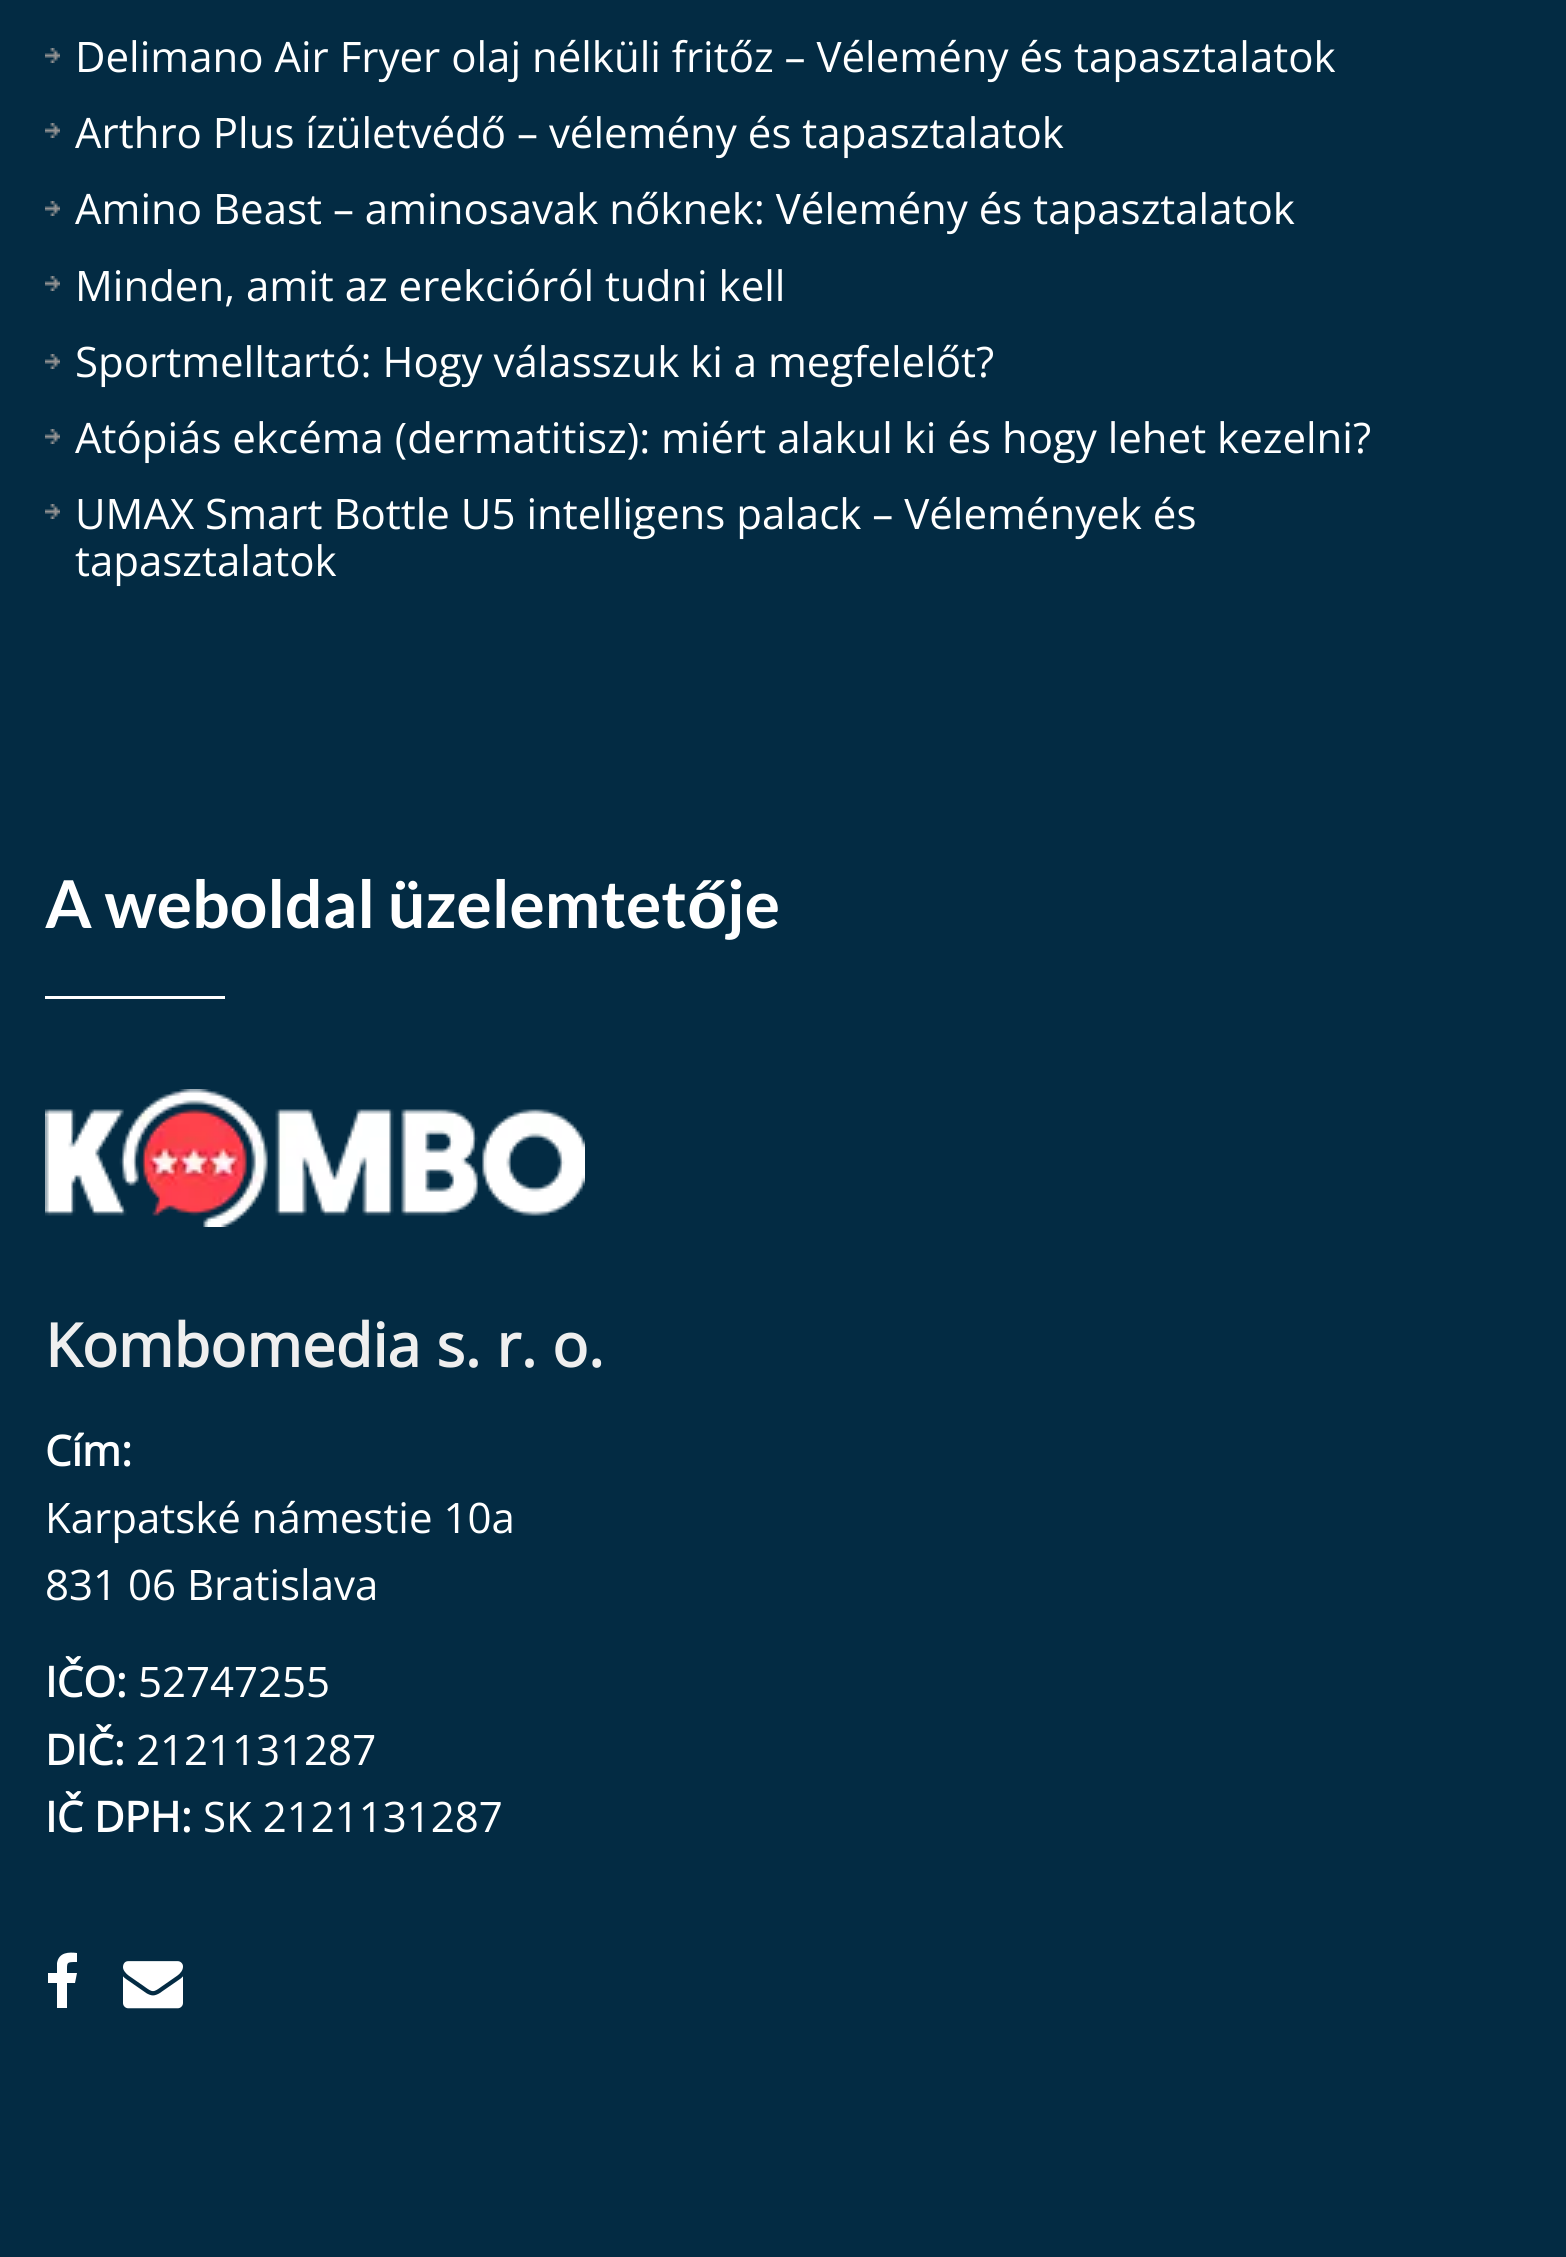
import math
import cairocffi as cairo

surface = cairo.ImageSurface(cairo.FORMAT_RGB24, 1566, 2257)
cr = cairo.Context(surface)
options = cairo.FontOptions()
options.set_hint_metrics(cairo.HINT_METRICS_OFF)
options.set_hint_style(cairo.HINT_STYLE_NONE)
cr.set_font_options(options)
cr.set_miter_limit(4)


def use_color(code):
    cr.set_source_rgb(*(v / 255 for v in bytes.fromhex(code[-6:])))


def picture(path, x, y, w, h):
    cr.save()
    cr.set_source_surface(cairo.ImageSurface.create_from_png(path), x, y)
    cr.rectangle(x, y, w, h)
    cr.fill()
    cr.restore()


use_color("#032b43")
cr.paint()
picture("img1.png", 45, 48, 15, 15)
cr.select_font_face("Open Sans")
cr.set_font_size(42)
use_color("#ffffff")
cr.move_to(75, 72)
cr.show_text("Delimano Air Fryer olaj nélküli fritőz – Vélemény és tapasztalatok")
picture("img1.png", 45, 123, 15, 15)
cr.move_to(75, 148)
cr.show_text("Arthro Plus ízületvédő – vélemény és tapasztalatok")
picture("img1.png", 45, 201, 15, 15)
cr.move_to(75, 224)
cr.show_text("Amino Beast – aminosavak nőknek: Vélemény és tapasztalatok")
picture("img1.png", 45, 276, 15, 15)
cr.move_to(75, 301)
cr.show_text("Minden, amit az erekcióról tudni kell")
picture("img1.png", 45, 354, 15, 15)
cr.move_to(75, 377)
cr.show_text("Sportmelltartó: Hogy válasszuk ki a megfelelőt?")
picture("img1.png", 45, 429, 15, 15)
cr.move_to(75, 453)
cr.show_text("Atópiás ekcéma (dermatitisz): miért alakul ki és hogy lehet kezelni?")
picture("img1.png", 45, 504, 15, 15)
cr.move_to(75, 529)
cr.show_text("UMAX Smart Bottle U5 intelligens palack – Vélemények és")
cr.move_to(75, 576)
cr.show_text("tapasztalatok")
cr.select_font_face("Lato", cairo.FONT_SLANT_NORMAL, cairo.FONT_WEIGHT_BOLD)
cr.set_font_size(66)
cr.move_to(45, 928)
cr.show_text("A weboldal üzelemtet")
cr.select_font_face("Liberation Sans", cairo.FONT_SLANT_NORMAL, cairo.FONT_WEIGHT_BOLD)
cr.move_to(687, 928)
cr.show_text("ő")
cr.select_font_face("Lato", cairo.FONT_SLANT_NORMAL, cairo.FONT_WEIGHT_BOLD)
cr.move_to(727, 928)
cr.show_text("je")
cr.rectangle(45, 996, 180, 3)
cr.fill()
picture("img2.png", 45, 1089, 540, 138)
cr.select_font_face("Open Sans", cairo.FONT_SLANT_NORMAL, cairo.FONT_WEIGHT_BOLD)
cr.set_font_size(60)
use_color("#efefef")
cr.move_to(45, 1367)
cr.show_text("Kombomedia s. r. o.")
cr.set_font_size(42)
use_color("#ffffff")
cr.move_to(45, 1466)
cr.show_text("Cím:")
cr.select_font_face("Open Sans")
cr.move_to(45, 1533)
cr.show_text("Karpatské námestie 10a")
cr.move_to(45, 1600)
cr.show_text("831 06 Bratislava")
cr.select_font_face("Open Sans", cairo.FONT_SLANT_NORMAL, cairo.FONT_WEIGHT_BOLD)
cr.move_to(45, 1697)
cr.show_text("IČO:")
cr.select_font_face("Open Sans")
cr.move_to(138, 1697)
cr.show_text("52747255")
cr.select_font_face("Open Sans", cairo.FONT_SLANT_NORMAL, cairo.FONT_WEIGHT_BOLD)
cr.move_to(45, 1765)
cr.show_text("DIČ:")
cr.select_font_face("Open Sans")
cr.move_to(136, 1765)
cr.show_text("2121131287")
cr.select_font_face("Open Sans", cairo.FONT_SLANT_NORMAL, cairo.FONT_WEIGHT_BOLD)
cr.move_to(45, 1832)
cr.show_text("IČ DPH:")
cr.select_font_face("Open Sans")
cr.move_to(203, 1832)
cr.show_text("SK 2121131287")
cr.new_path()
cr.move_to(77, 1953)
cr.line_to(77, 1962)
cr.curve_to(66, 1962, 67, 1962, 67, 1973)
cr.line_to(77, 1973)
cr.line_to(75, 1983)
cr.line_to(67, 1983)
cr.line_to(67, 2008)
cr.line_to(57, 2008)
cr.line_to(57, 1983)
cr.line_to(48, 1983)
cr.line_to(48, 1973)
cr.line_to(57, 1973)
cr.line_to(57, 1963)
cr.curve_to(59, 1952, 69, 1952, 77, 1953)
cr.close_path()
cr.fill()
picture("img3.png", 123, 1961, 60, 48)
surface.write_to_png("result.png")
